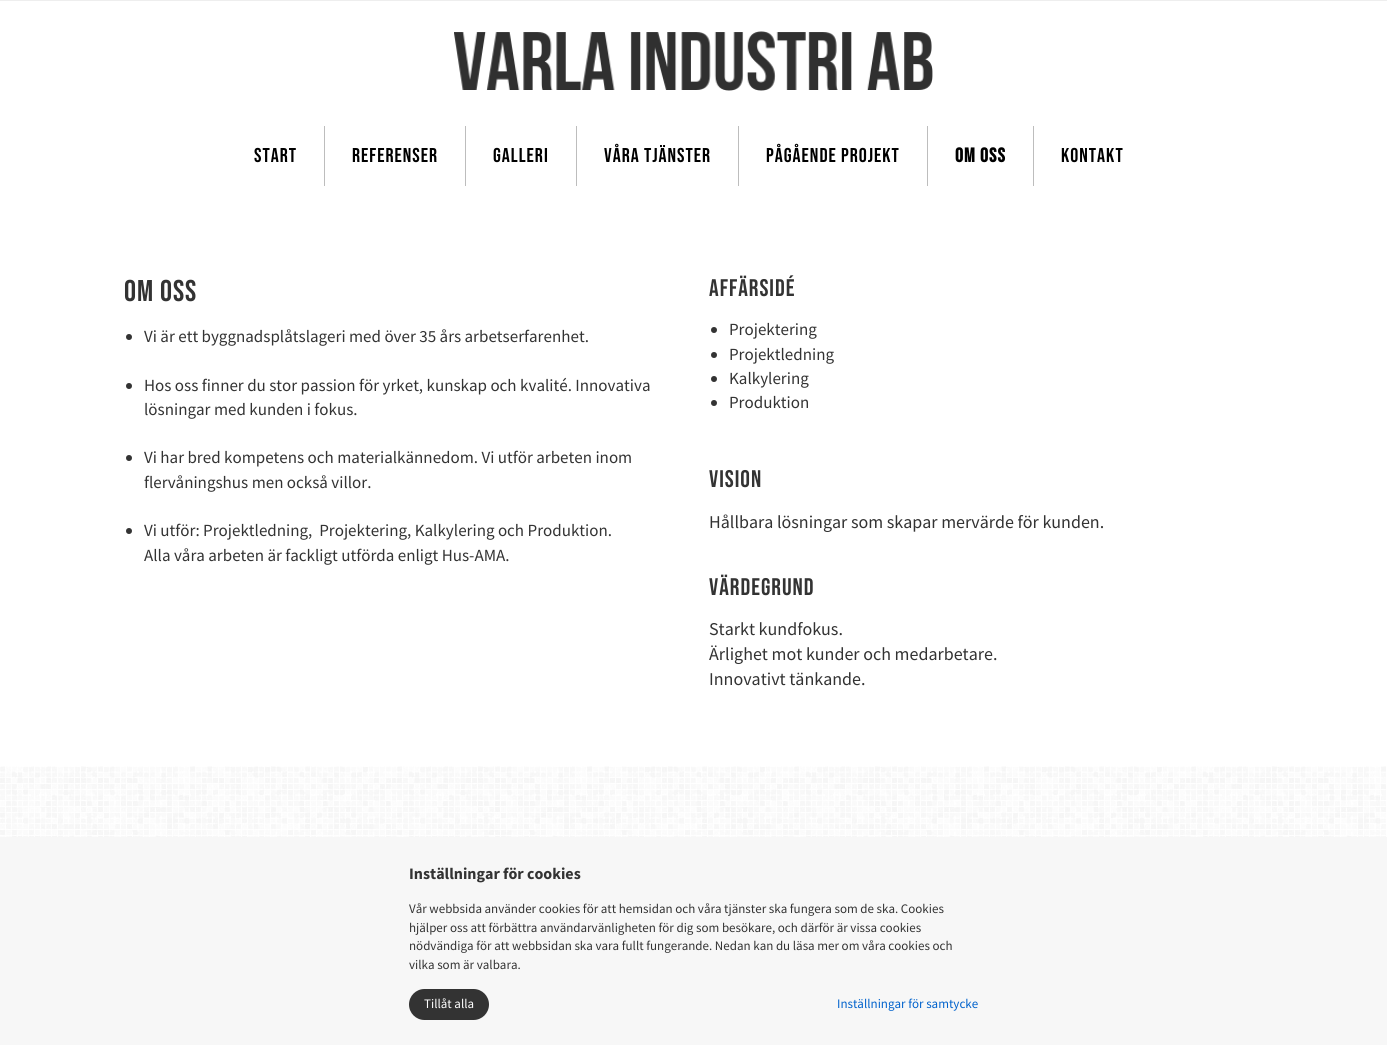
import math
import cairocffi as cairo

surface = cairo.ImageSurface(cairo.FORMAT_RGB24, 1387, 1045)
cr = cairo.Context(surface)
options = cairo.FontOptions()
options.set_hint_metrics(cairo.HINT_METRICS_OFF)
options.set_hint_style(cairo.HINT_STYLE_NONE)
cr.set_font_options(options)
cr.set_miter_limit(4)


def use_color(code):
    cr.set_source_rgb(*(v / 255 for v in bytes.fromhex(code[-6:])))


def spaced_text(x, y, s, letter, word):
    cr.move_to(x, y)
    for ch in s:
        cr.show_text(ch)
        cr.rel_move_to(letter + word * (ch == ' '), 0)


def round_rect(x, y, w, h, r):
    cr.new_sub_path()
    for i, (u, v) in enumerate([(x + w - r, y + h - r), (x + r, y + h - r), (x + r, y + r), (x + w - r, y + r)]):
        cr.arc(u, v, r, i * math.pi / 2, (i + 1) * math.pi / 2)
    cr.close_path()


def picture(path, x, y, w, h):
    cr.save()
    cr.set_source_surface(cairo.ImageSurface.create_from_png(path), x, y)
    cr.rectangle(x, y, w, h)
    cr.fill()
    cr.restore()


use_color("#ffffff")
cr.paint()
use_color("#eeeeee")
cr.rectangle(0, 0, 1387, 1)
cr.fill()
picture("img1.png", 454, 31, 479, 60)
use_color("#bdbdbd")
cr.rectangle(324, 126, 1, 60)
cr.fill()
cr.select_font_face("Bebas Neue")
cr.set_font_size(20)
use_color("#000000")
spaced_text(254, 162, "Start", 1, 0)
use_color("#bdbdbd")
cr.rectangle(465, 126, 1, 60)
cr.fill()
use_color("#000000")
spaced_text(352, 162, "Referenser", 1, 0)
use_color("#bdbdbd")
cr.rectangle(576, 126, 1, 60)
cr.fill()
use_color("#000000")
spaced_text(493, 162, "Galleri", 1, 0)
use_color("#bdbdbd")
cr.rectangle(738, 126, 1, 60)
cr.fill()
use_color("#000000")
spaced_text(604, 162, "Våra tjänster", 1, 0)
use_color("#bdbdbd")
cr.rectangle(927, 126, 1, 60)
cr.fill()
use_color("#000000")
spaced_text(766, 162, "Pågående projekt", 1, 0)
use_color("#bdbdbd")
cr.rectangle(1033, 126, 1, 60)
cr.fill()
cr.select_font_face("Bebas Neue", cairo.FONT_SLANT_NORMAL, cairo.FONT_WEIGHT_BOLD)
use_color("#000000")
spaced_text(955, 162, "Om oss", 1, 0)
cr.select_font_face("Bebas Neue")
spaced_text(1061, 162, "Kontakt", 1, 0)
cr.set_font_size(30)
use_color("#333333")
spaced_text(124, 301, "Om oss", 1, 0)
cr.new_path()
cr.arc(129, 337, 3, 0, 2 * math.pi)
cr.fill()
cr.select_font_face("Source Sans Pro")
cr.set_font_size(17)
cr.move_to(144, 342)
cr.show_text("Vi är ett byggnadsplåtslageri med över 35 års arbetserfarenhet.")
cr.new_path()
cr.arc(129, 386, 3, 0, 2 * math.pi)
cr.fill()
cr.move_to(144, 391)
cr.show_text("Hos oss finner du stor passion för yrket, kunskap och kvalité. Innovativa")
cr.move_to(144, 415)
cr.show_text("lösningar med kunden i fokus.")
cr.new_path()
cr.arc(129, 458, 3, 0, 2 * math.pi)
cr.fill()
cr.move_to(144, 463)
cr.show_text("Vi har bred kompetens och materialkännedom. Vi utför arbeten inom")
cr.move_to(144, 488)
cr.show_text("flervåningshus men också villor.")
cr.new_path()
cr.arc(129, 531, 3, 0, 2 * math.pi)
cr.fill()
cr.move_to(144, 536)
cr.show_text("Vi utför: Projektledning,  Projektering, Kalkylering och Produktion.")
cr.move_to(144, 561)
cr.show_text("Alla våra arbeten är fackligt utförda enligt Hus-AMA.")
cr.select_font_face("Bebas Neue")
cr.set_font_size(24)
spaced_text(709, 296, "Affärsidé", 1, 0)
cr.new_path()
cr.arc(714, 330, 3, 0, 2 * math.pi)
cr.fill()
cr.select_font_face("Source Sans Pro")
cr.set_font_size(17)
cr.move_to(729, 335)
cr.show_text("Projektering")
cr.new_path()
cr.arc(714, 355, 3, 0, 2 * math.pi)
cr.fill()
cr.move_to(729, 360)
cr.show_text("Projektledning")
cr.new_path()
cr.arc(714, 379, 3, 0, 2 * math.pi)
cr.fill()
cr.move_to(729, 384)
cr.show_text("Kalkylering")
cr.new_path()
cr.arc(714, 403, 3, 0, 2 * math.pi)
cr.fill()
cr.move_to(729, 408)
cr.show_text("Produktion")
cr.select_font_face("Bebas Neue")
cr.set_font_size(24)
spaced_text(709, 487, "Vision", 1, 0)
cr.select_font_face("Source Sans Pro")
cr.set_font_size(18)
cr.move_to(709, 528)
cr.show_text("Hållbara lösningar som skapar mervärde för kunden.")
cr.select_font_face("Bebas Neue")
cr.set_font_size(24)
spaced_text(709, 595, "Värdegrund", 1, 0)
cr.select_font_face("Source Sans Pro")
cr.set_font_size(18)
cr.move_to(709, 635)
cr.show_text("Starkt kundfokus.")
cr.move_to(709, 660)
cr.show_text("Ärlighet mot kunder och medarbetare.")
cr.move_to(709, 685)
cr.show_text("Innovativt tänkande.")
picture("img2.png", 0, 766, 1386, 71)
use_color("#f7f7f7")
cr.rectangle(0, 837, 1387, 208)
cr.fill()
cr.select_font_face("Source Sans Pro", cairo.FONT_SLANT_NORMAL, cairo.FONT_WEIGHT_BOLD)
cr.set_font_size(16)
use_color("#333333")
cr.move_to(409, 879)
cr.show_text("Inställningar för cookies")
cr.select_font_face("Source Sans Pro")
cr.set_font_size(13)
cr.move_to(409, 913)
cr.show_text("Vår webbsida använder cookies för att hemsidan och våra tjänster ska fungera som de ska. Cookies")
cr.move_to(409, 932)
cr.show_text("hjälper oss att förbättra användarvänligheten för dig som besökare, och därför är vissa cookies")
cr.move_to(409, 950)
cr.show_text("nödvändiga för att webbsidan ska vara fullt fungerande. Nedan kan du läsa mer om våra cookies och")
cr.move_to(409, 969)
cr.show_text("vilka som är valbara.")
round_rect(409, 989, 80, 31, 15.5)
cr.fill()
use_color("#ffffff")
cr.move_to(424, 1008)
cr.show_text("Tillåt alla")
use_color("#0062cc")
cr.move_to(837, 1008)
cr.show_text("Inställningar för samtycke")
surface.write_to_png("result.png")
